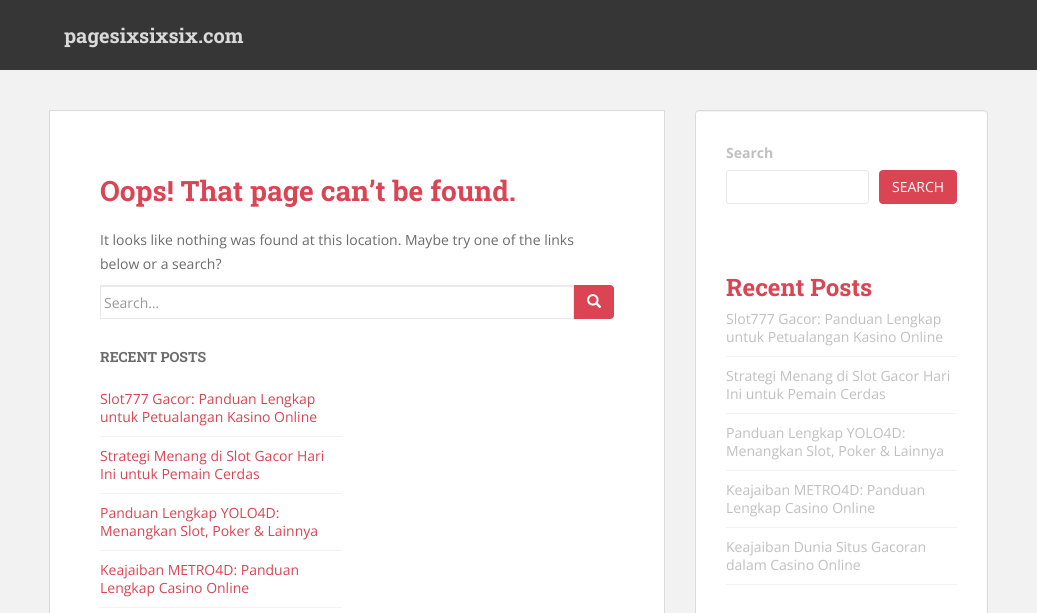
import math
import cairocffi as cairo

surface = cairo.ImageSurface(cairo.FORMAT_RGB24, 1037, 613)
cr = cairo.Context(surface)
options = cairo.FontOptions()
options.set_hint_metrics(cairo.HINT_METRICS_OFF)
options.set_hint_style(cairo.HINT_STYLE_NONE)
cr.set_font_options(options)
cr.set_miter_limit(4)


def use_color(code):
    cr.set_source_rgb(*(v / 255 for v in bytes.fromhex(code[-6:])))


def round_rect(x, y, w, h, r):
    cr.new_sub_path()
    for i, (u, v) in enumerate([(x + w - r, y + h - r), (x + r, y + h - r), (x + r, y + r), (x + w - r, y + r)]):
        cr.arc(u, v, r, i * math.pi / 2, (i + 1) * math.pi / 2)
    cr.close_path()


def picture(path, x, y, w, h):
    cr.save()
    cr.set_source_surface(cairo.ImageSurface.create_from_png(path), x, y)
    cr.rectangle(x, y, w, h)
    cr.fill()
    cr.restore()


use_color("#f2f2f2")
cr.paint()
use_color("#363636")
cr.rectangle(0, 0, 1037, 70)
cr.fill()
cr.select_font_face("Roboto Slab", cairo.FONT_SLANT_NORMAL, cairo.FONT_WEIGHT_BOLD)
cr.set_font_size(20)
use_color("#dadada")
cr.move_to(64, 43)
cr.show_text("pagesixsixsix.com")
use_color("#ffffff")
cr.rectangle(49.5, 110.5, 615, 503)
cr.fill_preserve()
use_color("#dadada")
cr.set_line_width(1)
cr.stroke()
cr.set_font_size(28)
use_color("#da4453")
cr.move_to(100, 201)
cr.show_text("Oops! That page can’t be found.")
cr.select_font_face("Open Sans")
cr.set_font_size(14)
use_color("#6b6b6b")
cr.move_to(100, 245)
cr.show_text("It looks like nothing was found at this location. Maybe try one of the links")
cr.move_to(100, 269)
cr.show_text("below or a search?")
use_color("#ececec")
cr.rectangle(101, 286, 472, 1)
cr.fill()
cr.rectangle(100.5, 285.5, 473, 33)
use_color("#e8e8e8")
cr.stroke()
use_color("#999999")
cr.move_to(104, 308)
cr.show_text("Search…")
use_color("#da4453")
cr.new_path()
cr.move_to(574.5, 285.5)
cr.line_to(610, 285.5)
cr.curve_to(612, 285.5, 613.5, 287, 613.5, 289)
cr.line_to(613.5, 315)
cr.curve_to(613.5, 317, 612, 318.5, 610, 318.5)
cr.line_to(574.5, 318.5)
cr.close_path()
cr.fill_preserve()
cr.stroke()
picture("img1.png", 587, 294, 15, 14)
cr.select_font_face("Roboto Slab", cairo.FONT_SLANT_NORMAL, cairo.FONT_WEIGHT_BOLD)
use_color("#6b6b6b")
cr.move_to(100, 362)
cr.show_text("RECENT POSTS")
use_color("#f2f2f2")
cr.rectangle(100, 436, 242, 1)
cr.fill()
cr.select_font_face("Open Sans")
use_color("#da4453")
cr.move_to(100, 404)
cr.show_text("Slot777 Gacor: Panduan Lengkap")
cr.move_to(100, 422)
cr.show_text("untuk Petualangan Kasino Online")
use_color("#f2f2f2")
cr.rectangle(100, 493, 242, 1)
cr.fill()
use_color("#da4453")
cr.move_to(100, 461)
cr.show_text("Strategi Menang di Slot Gacor Hari")
cr.move_to(100, 479)
cr.show_text("Ini untuk Pemain Cerdas")
use_color("#f2f2f2")
cr.rectangle(100, 550, 242, 1)
cr.fill()
use_color("#da4453")
cr.move_to(100, 518)
cr.show_text("Panduan Lengkap YOLO4D:")
cr.move_to(100, 536)
cr.show_text("Menangkan Slot, Poker & Lainnya")
use_color("#f2f2f2")
cr.rectangle(100, 607, 242, 1)
cr.fill()
use_color("#da4453")
cr.move_to(100, 575)
cr.show_text("Keajaiban METRO4D: Panduan")
cr.move_to(100, 593)
cr.show_text("Lengkap Casino Online")
use_color("#ffffff")
round_rect(695, 110, 293, 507, 4)
cr.fill()
use_color("#f2f2f2")
cr.new_path()
cr.move_to(699, 112)
cr.line_to(984, 112)
cr.curve_to(986, 112, 987, 113, 987, 115)
cr.curve_to(987, 113, 986, 111, 984, 111)
cr.line_to(699, 111)
cr.curve_to(697, 111, 696, 113, 696, 115)
cr.curve_to(696, 113, 697, 112, 699, 112)
cr.close_path()
cr.fill()
round_rect(695.5, 110.5, 292, 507, 3.5)
use_color("#dadada")
cr.stroke()
cr.select_font_face("Open Sans", cairo.FONT_SLANT_NORMAL, cairo.FONT_WEIGHT_BOLD)
use_color("#c1c0c0")
cr.move_to(726, 158)
cr.show_text("Search")
round_rect(726.5, 170.5, 142, 33, 2.5)
use_color("#e8e8e8")
cr.stroke()
use_color("#da4453")
round_rect(879.5, 170.5, 77, 33, 3.5)
cr.fill_preserve()
cr.stroke()
cr.select_font_face("Open Sans")
use_color("#ffffff")
cr.move_to(892, 192)
cr.show_text("SEARCH")
cr.select_font_face("Roboto Slab", cairo.FONT_SLANT_NORMAL, cairo.FONT_WEIGHT_BOLD)
cr.set_font_size(24)
use_color("#da4453")
cr.move_to(726, 296)
cr.show_text("Recent Posts")
use_color("#f2f2f2")
cr.rectangle(726, 356, 231, 1)
cr.fill()
cr.select_font_face("Open Sans")
cr.set_font_size(14)
use_color("#c1c0c0")
cr.move_to(726, 324)
cr.show_text("Slot777 Gacor: Panduan Lengkap")
cr.move_to(726, 342)
cr.show_text("untuk Petualangan Kasino Online")
use_color("#f2f2f2")
cr.rectangle(726, 413, 231, 1)
cr.fill()
use_color("#c1c0c0")
cr.move_to(726, 381)
cr.show_text("Strategi Menang di Slot Gacor Hari")
cr.move_to(726, 399)
cr.show_text("Ini untuk Pemain Cerdas")
use_color("#f2f2f2")
cr.rectangle(726, 470, 231, 1)
cr.fill()
use_color("#c1c0c0")
cr.move_to(726, 438)
cr.show_text("Panduan Lengkap YOLO4D:")
cr.move_to(726, 456)
cr.show_text("Menangkan Slot, Poker & Lainnya")
use_color("#f2f2f2")
cr.rectangle(726, 527, 231, 1)
cr.fill()
use_color("#c1c0c0")
cr.move_to(726, 495)
cr.show_text("Keajaiban METRO4D: Panduan")
cr.move_to(726, 513)
cr.show_text("Lengkap Casino Online")
use_color("#f2f2f2")
cr.rectangle(726, 584, 231, 1)
cr.fill()
use_color("#c1c0c0")
cr.move_to(726, 552)
cr.show_text("Keajaiban Dunia Situs Gacoran")
cr.move_to(726, 570)
cr.show_text("dalam Casino Online")
surface.write_to_png("result.png")
